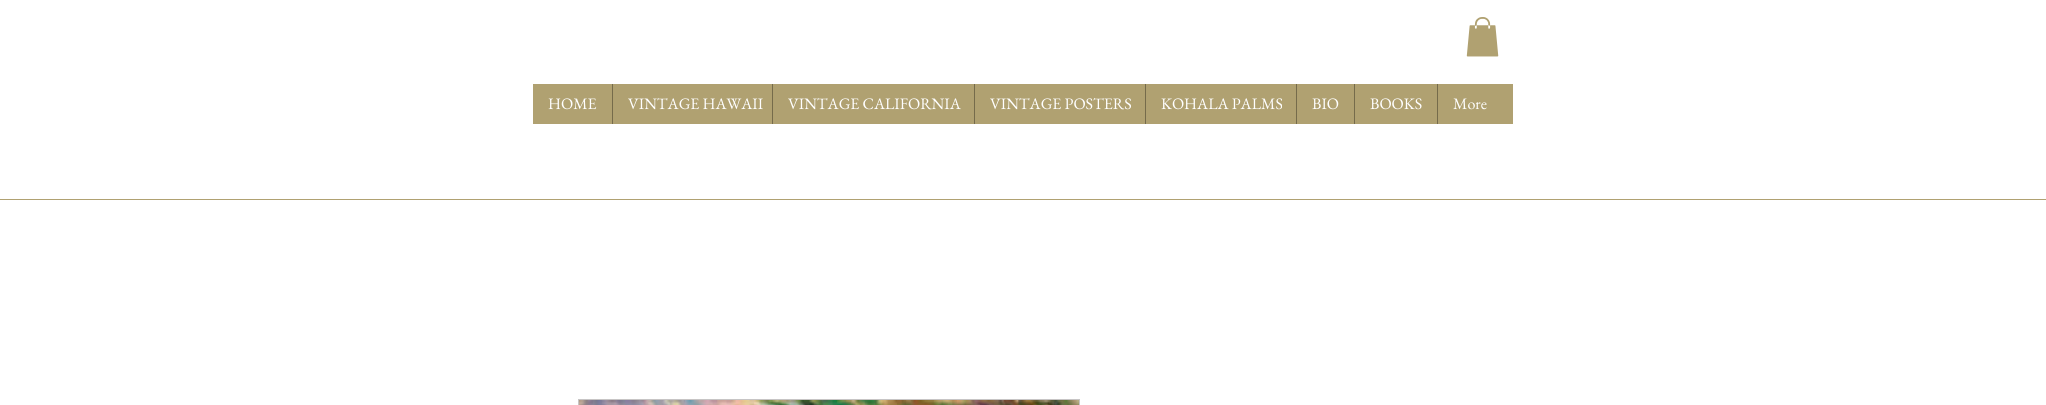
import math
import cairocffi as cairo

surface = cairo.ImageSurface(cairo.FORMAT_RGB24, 2046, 405)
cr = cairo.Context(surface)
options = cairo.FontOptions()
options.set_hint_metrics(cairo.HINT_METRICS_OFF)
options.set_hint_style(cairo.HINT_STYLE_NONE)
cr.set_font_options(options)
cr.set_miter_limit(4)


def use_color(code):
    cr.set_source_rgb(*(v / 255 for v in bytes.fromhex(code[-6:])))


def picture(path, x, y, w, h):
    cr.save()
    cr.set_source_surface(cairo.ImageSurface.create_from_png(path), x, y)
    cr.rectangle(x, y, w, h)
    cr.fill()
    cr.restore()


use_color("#ffffff")
cr.paint()
picture("img1.png", 1466, 17, 33, 40)
use_color("#b0a171")
cr.rectangle(533, 84, 980, 40)
cr.fill()
cr.select_font_face("EB Garamond")
cr.set_font_size(16)
use_color("#ffffff")
cr.move_to(548, 109)
cr.show_text("HOME")
use_color("#756b4b")
cr.rectangle(612, 84, 1, 40)
cr.fill()
use_color("#ffffff")
cr.move_to(628, 109)
cr.show_text("VINTAGE HAWAII")
use_color("#756b4b")
cr.rectangle(772, 84, 1, 40)
cr.fill()
use_color("#ffffff")
cr.move_to(788, 109)
cr.show_text("VINTAGE CALIFORNIA")
use_color("#756b4b")
cr.rectangle(974, 84, 1, 40)
cr.fill()
use_color("#ffffff")
cr.move_to(990, 109)
cr.show_text("VINTAGE POSTERS")
use_color("#756b4b")
cr.rectangle(1145, 84, 1, 40)
cr.fill()
use_color("#ffffff")
cr.move_to(1161, 109)
cr.show_text("KOHALA PALMS")
use_color("#756b4b")
cr.rectangle(1296, 84, 1, 40)
cr.fill()
use_color("#ffffff")
cr.move_to(1312, 109)
cr.show_text("BIO")
use_color("#756b4b")
cr.rectangle(1354, 84, 1, 40)
cr.fill()
use_color("#ffffff")
cr.move_to(1370, 109)
cr.show_text("BOOKS")
use_color("#756b4b")
cr.rectangle(1437, 84, 1, 40)
cr.fill()
use_color("#ffffff")
cr.move_to(1453, 109)
cr.show_text("More")
use_color("#b0a171")
cr.rectangle(0, 199, 2046, 1)
cr.fill()
cr.rectangle(578.5, 399.5, 501, 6)
use_color("#c7c5c5")
cr.set_line_width(1)
cr.stroke()
picture("img2.png", 579, 400, 500, 5)
surface.write_to_png("result.png")
